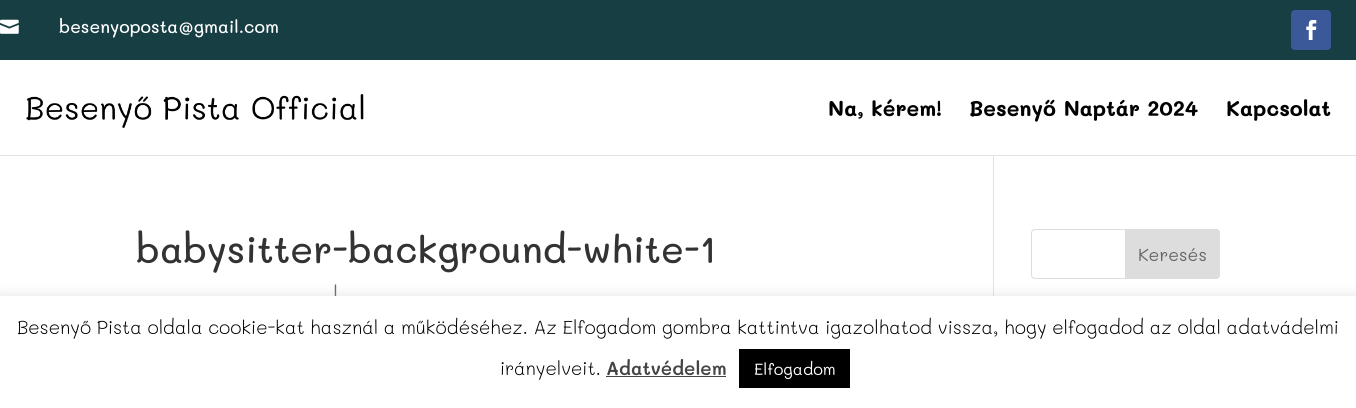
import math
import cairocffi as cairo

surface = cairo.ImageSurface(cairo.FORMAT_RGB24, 1356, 408)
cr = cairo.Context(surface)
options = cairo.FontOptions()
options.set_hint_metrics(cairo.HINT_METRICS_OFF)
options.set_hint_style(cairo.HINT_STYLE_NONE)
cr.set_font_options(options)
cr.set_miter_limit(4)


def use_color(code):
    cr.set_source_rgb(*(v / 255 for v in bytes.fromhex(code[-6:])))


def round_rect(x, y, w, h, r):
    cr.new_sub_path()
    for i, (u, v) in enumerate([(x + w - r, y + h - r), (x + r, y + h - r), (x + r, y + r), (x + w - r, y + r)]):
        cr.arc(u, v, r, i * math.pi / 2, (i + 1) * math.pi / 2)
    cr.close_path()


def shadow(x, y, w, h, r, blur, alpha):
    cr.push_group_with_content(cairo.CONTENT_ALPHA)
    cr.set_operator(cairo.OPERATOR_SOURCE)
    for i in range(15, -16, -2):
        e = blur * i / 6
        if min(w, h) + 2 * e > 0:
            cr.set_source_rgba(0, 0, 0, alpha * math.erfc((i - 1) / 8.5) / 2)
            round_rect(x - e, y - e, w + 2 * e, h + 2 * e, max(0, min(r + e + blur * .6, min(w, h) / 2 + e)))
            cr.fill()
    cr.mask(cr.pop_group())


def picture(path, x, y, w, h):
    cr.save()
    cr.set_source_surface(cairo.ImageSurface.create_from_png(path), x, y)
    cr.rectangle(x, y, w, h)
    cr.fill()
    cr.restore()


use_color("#ffffff")
cr.paint()
use_color("#173e43")
cr.rectangle(0, 0, 1356, 60)
cr.fill()
picture("img1.png", 0, 19, 19, 15)
cr.select_font_face("Mali Medium")
cr.set_font_size(17.5)
use_color("#ffffff")
cr.move_to(59, 33)
cr.show_text("besenyoposta@gmail.com")
use_color("#3b5998")
round_rect(1291, 10, 40, 40, 4)
cr.fill()
picture("img2.png", 1306, 20, 11, 20)
use_color("#e2e2e2")
cr.rectangle(0, 155, 1356, 1)
cr.fill()
picture("img3.png", 26, 94, 338, 34)
cr.select_font_face("Mali", cairo.FONT_SLANT_NORMAL, cairo.FONT_WEIGHT_BOLD)
cr.set_font_size(21.25)
use_color("#000000")
cr.move_to(828, 116)
cr.show_text("Na, kérem!")
cr.move_to(969, 116)
cr.show_text("Besenyő Naptár 2024")
cr.move_to(1226, 116)
cr.show_text("Kapcsolat")
use_color("#e2e2e2")
cr.rectangle(993, 156, 1, 140)
cr.fill()
cr.select_font_face("Mali Medium")
cr.set_font_size(37.5)
use_color("#333333")
cr.move_to(136, 263)
cr.show_text("babysitter-background-white-1")
cr.set_font_size(17.5)
use_color("#666666")
cr.move_to(333, 300)
cr.show_text("|")
round_rect(1031.5, 229.5, 188, 49, 3.5)
use_color("#dddddd")
cr.set_line_width(1)
cr.stroke()
cr.new_path()
cr.move_to(1125.5, 229.5)
cr.line_to(1216, 229.5)
cr.curve_to(1218, 229.5, 1219.5, 231, 1219.5, 233)
cr.line_to(1219.5, 275)
cr.curve_to(1219.5, 277, 1218, 278.5, 1216, 278.5)
cr.line_to(1125.5, 278.5)
cr.close_path()
cr.fill_preserve()
cr.stroke()
cr.select_font_face("Mali")
use_color("#666666")
cr.move_to(1138, 261)
cr.show_text("Keresés")
use_color("#acabab")
shadow(0, 295, 1356, 113, 0, 6, 0.3)
use_color("#ffffff")
cr.rectangle(0, 296, 1356, 112)
cr.fill()
cr.select_font_face("Mali Light")
cr.set_font_size(18.75)
use_color("#000000")
cr.move_to(17, 334)
cr.show_text("Besenyő Pista oldala cookie-kat használ a működéséhez. Az Elfogadom gombra kattintva igazolhatod vissza, hogy elfogadod az oldal adatvádelmi")
cr.move_to(500, 375)
cr.show_text("irányelveit.")
cr.select_font_face("Mali SemiBold")
use_color("#444444")
cr.move_to(606, 375)
cr.show_text("Adatvédelem")
cr.rectangle(606, 376, 120, 1)
cr.fill()
use_color("#000000")
cr.rectangle(739, 349, 111, 39)
cr.fill()
cr.select_font_face("Mali")
cr.set_font_size(16.25)
use_color("#ffffff")
cr.move_to(754, 375)
cr.show_text("Elfogadom")
surface.write_to_png("result.png")
